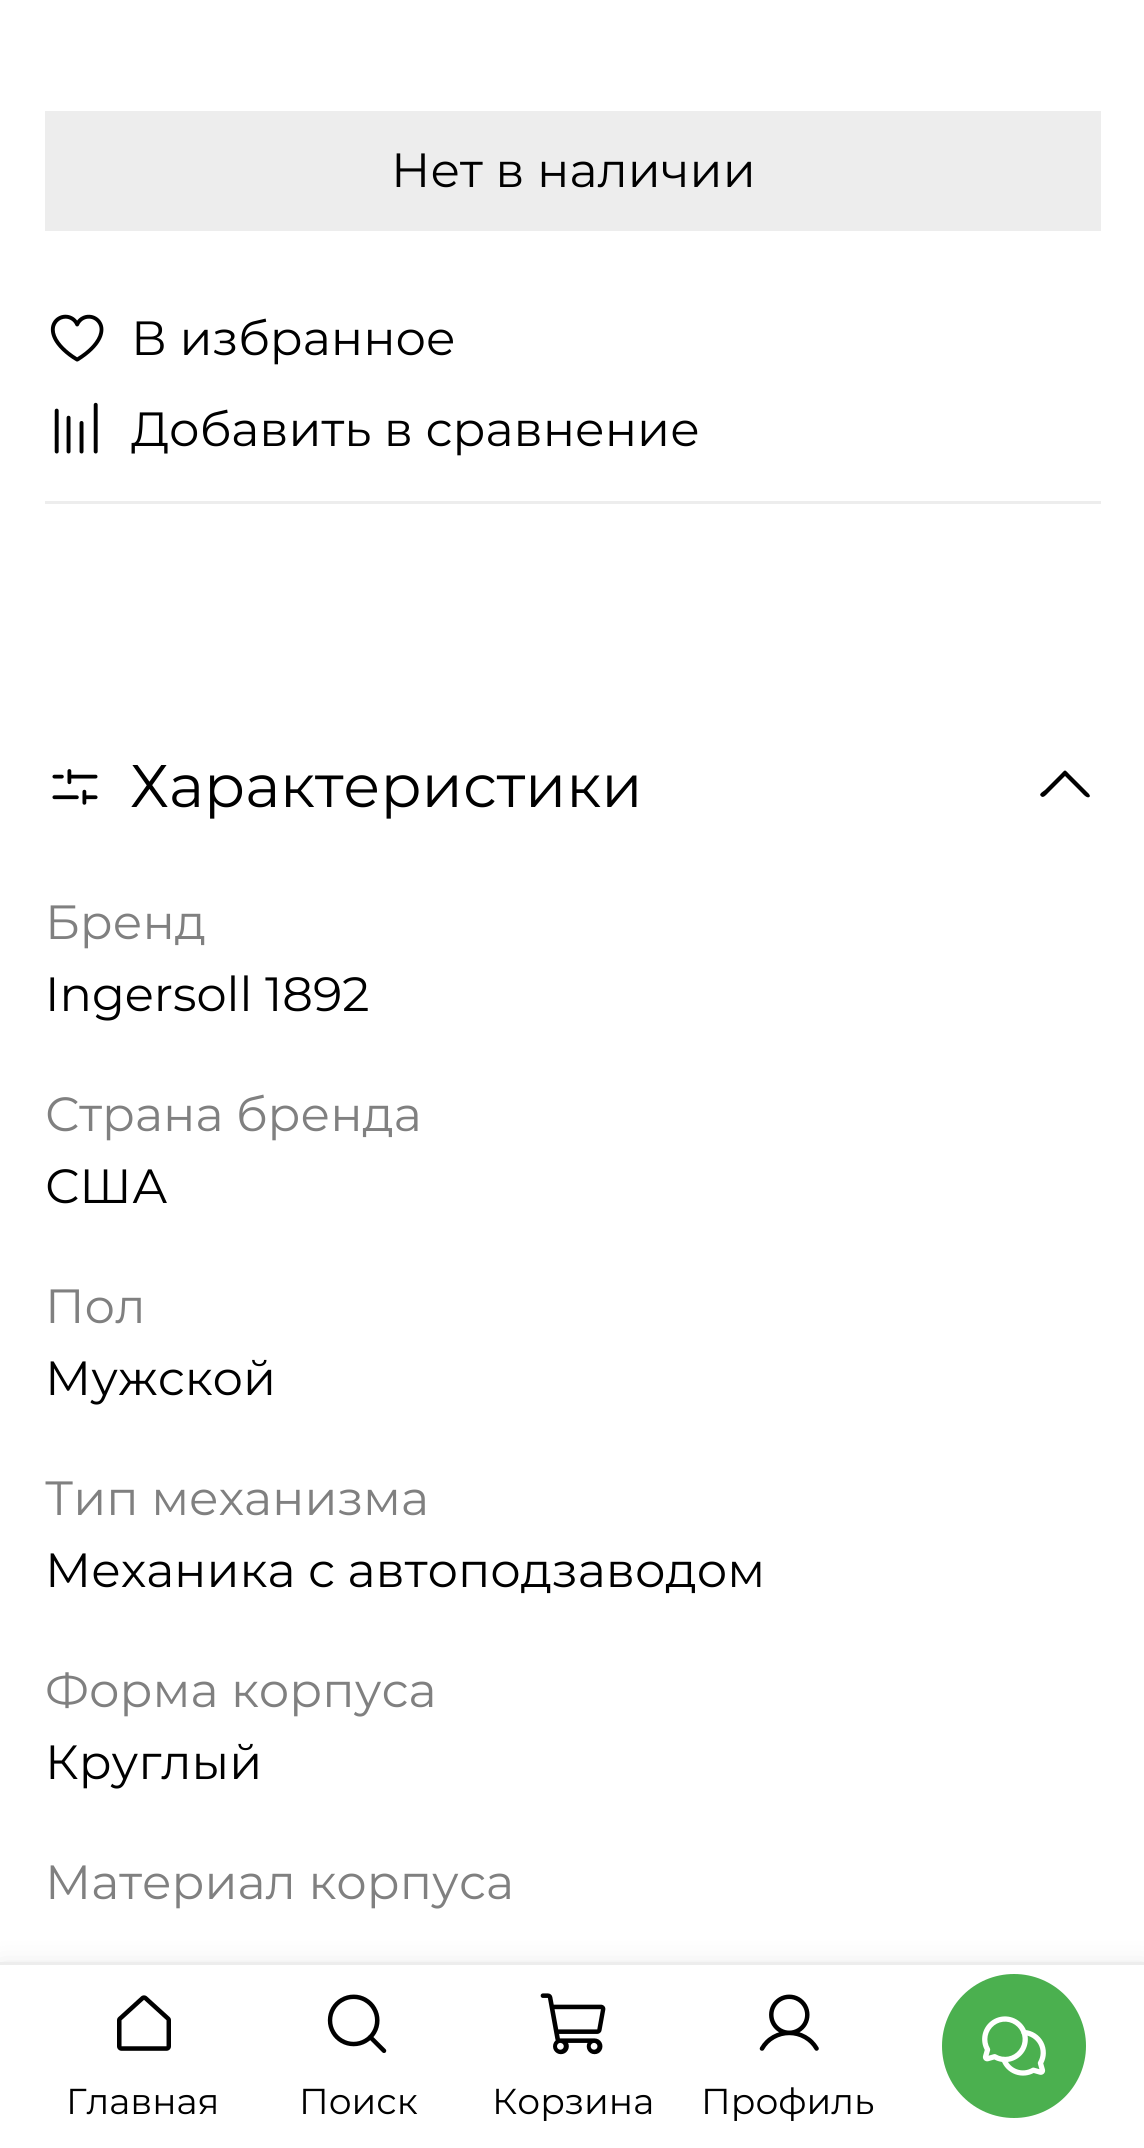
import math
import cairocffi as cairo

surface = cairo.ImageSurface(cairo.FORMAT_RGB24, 1144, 2148)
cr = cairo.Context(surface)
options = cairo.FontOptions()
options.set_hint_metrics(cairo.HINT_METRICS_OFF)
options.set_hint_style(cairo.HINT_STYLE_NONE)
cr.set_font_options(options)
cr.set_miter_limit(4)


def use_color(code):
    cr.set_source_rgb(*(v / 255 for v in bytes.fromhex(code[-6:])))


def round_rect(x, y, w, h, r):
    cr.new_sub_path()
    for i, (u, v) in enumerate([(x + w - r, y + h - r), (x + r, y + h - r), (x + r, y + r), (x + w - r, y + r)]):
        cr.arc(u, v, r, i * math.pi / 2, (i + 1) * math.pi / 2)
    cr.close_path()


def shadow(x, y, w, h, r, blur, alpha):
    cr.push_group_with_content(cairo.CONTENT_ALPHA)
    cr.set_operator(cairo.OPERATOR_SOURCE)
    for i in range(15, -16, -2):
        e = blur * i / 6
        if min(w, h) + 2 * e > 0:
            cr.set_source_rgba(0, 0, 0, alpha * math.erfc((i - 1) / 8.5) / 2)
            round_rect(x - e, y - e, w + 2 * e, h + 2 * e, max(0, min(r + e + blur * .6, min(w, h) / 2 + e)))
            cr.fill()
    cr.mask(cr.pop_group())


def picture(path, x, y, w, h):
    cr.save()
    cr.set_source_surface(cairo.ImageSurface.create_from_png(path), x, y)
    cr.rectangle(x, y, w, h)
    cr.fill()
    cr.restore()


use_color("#ffffff")
cr.paint()
use_color("#ededed")
cr.rectangle(45, 111, 1056, 120)
cr.fill()
cr.select_font_face("Montserrat")
cr.set_font_size(48)
use_color("#000000")
cr.move_to(391, 187)
cr.show_text("Нет в наличии")
picture("img1.png", 50, 314, 54, 48)
cr.move_to(131, 355)
cr.show_text("В избранное")
picture("img2.png", 54, 402, 44, 52)
cr.move_to(131, 446)
cr.show_text("Добавить в сравнение")
use_color("#ededed")
cr.rectangle(45, 501, 1056, 3)
cr.fill()
picture("img3.png", 52, 769, 46, 36)
cr.set_font_size(60)
use_color("#000000")
cr.move_to(130, 807)
cr.show_text("Характеристики")
cr.new_path()
cr.move_to(1041, 796)
cr.curve_to(1043, 799, 1047, 794, 1048, 793)
cr.line_to(1065, 776)
cr.line_to(1082, 793)
cr.curve_to(1083, 794, 1088, 800, 1090, 796)
cr.line_to(1089, 794)
cr.line_to(1070, 775)
cr.curve_to(1064, 769, 1066, 769, 1060, 775)
cr.line_to(1045, 790)
cr.curve_to(1044, 791, 1038, 794, 1041, 796)
cr.close_path()
cr.fill()
cr.set_font_size(48)
use_color("#808080")
cr.move_to(45, 939)
cr.show_text("Бренд")
use_color("#000000")
cr.move_to(45, 1011)
cr.show_text("Ingersoll 1892")
use_color("#808080")
cr.move_to(45, 1131)
cr.show_text("Страна бренда")
use_color("#000000")
cr.move_to(45, 1203)
cr.show_text("США")
use_color("#808080")
cr.move_to(45, 1323)
cr.show_text("Пол")
use_color("#000000")
cr.move_to(45, 1395)
cr.show_text("Мужской")
use_color("#808080")
cr.move_to(45, 1515)
cr.show_text("Тип механизма")
use_color("#000000")
cr.move_to(45, 1587)
cr.show_text("Механика с автоподзаводом")
use_color("#808080")
cr.move_to(45, 1707)
cr.show_text("Форма корпуса")
use_color("#000000")
cr.move_to(45, 1779)
cr.show_text("Круглый")
use_color("#808080")
cr.move_to(45, 1899)
cr.show_text("Материал корпуса")
use_color("#000000")
shadow(0, 1968, 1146, 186, 0, 15, 0.12)
use_color("#ffffff")
cr.rectangle(0, 1965, 1144, 183)
cr.fill()
use_color("#ededed")
cr.rectangle(0, 1962, 1144, 3)
cr.fill()
picture("img4.png", 117, 1995, 54, 56)
cr.set_font_size(36)
use_color("#000000")
cr.move_to(66, 2114)
cr.show_text("Главная")
picture("img5.png", 327, 1994, 60, 59)
cr.move_to(299, 2114)
cr.show_text("Поиск")
picture("img6.png", 540, 1993, 66, 62)
cr.move_to(492, 2114)
cr.show_text("Корзина")
picture("img7.png", 759, 1994, 60, 57)
cr.move_to(701, 2114)
cr.show_text("Профиль")
use_color("#4bb04f")
cr.new_path()
cr.arc(1014, 2046, 72, 0, 2 * math.pi)
cr.fill()
picture("img8.png", 982, 2016, 64, 60)
surface.write_to_png("result.png")
